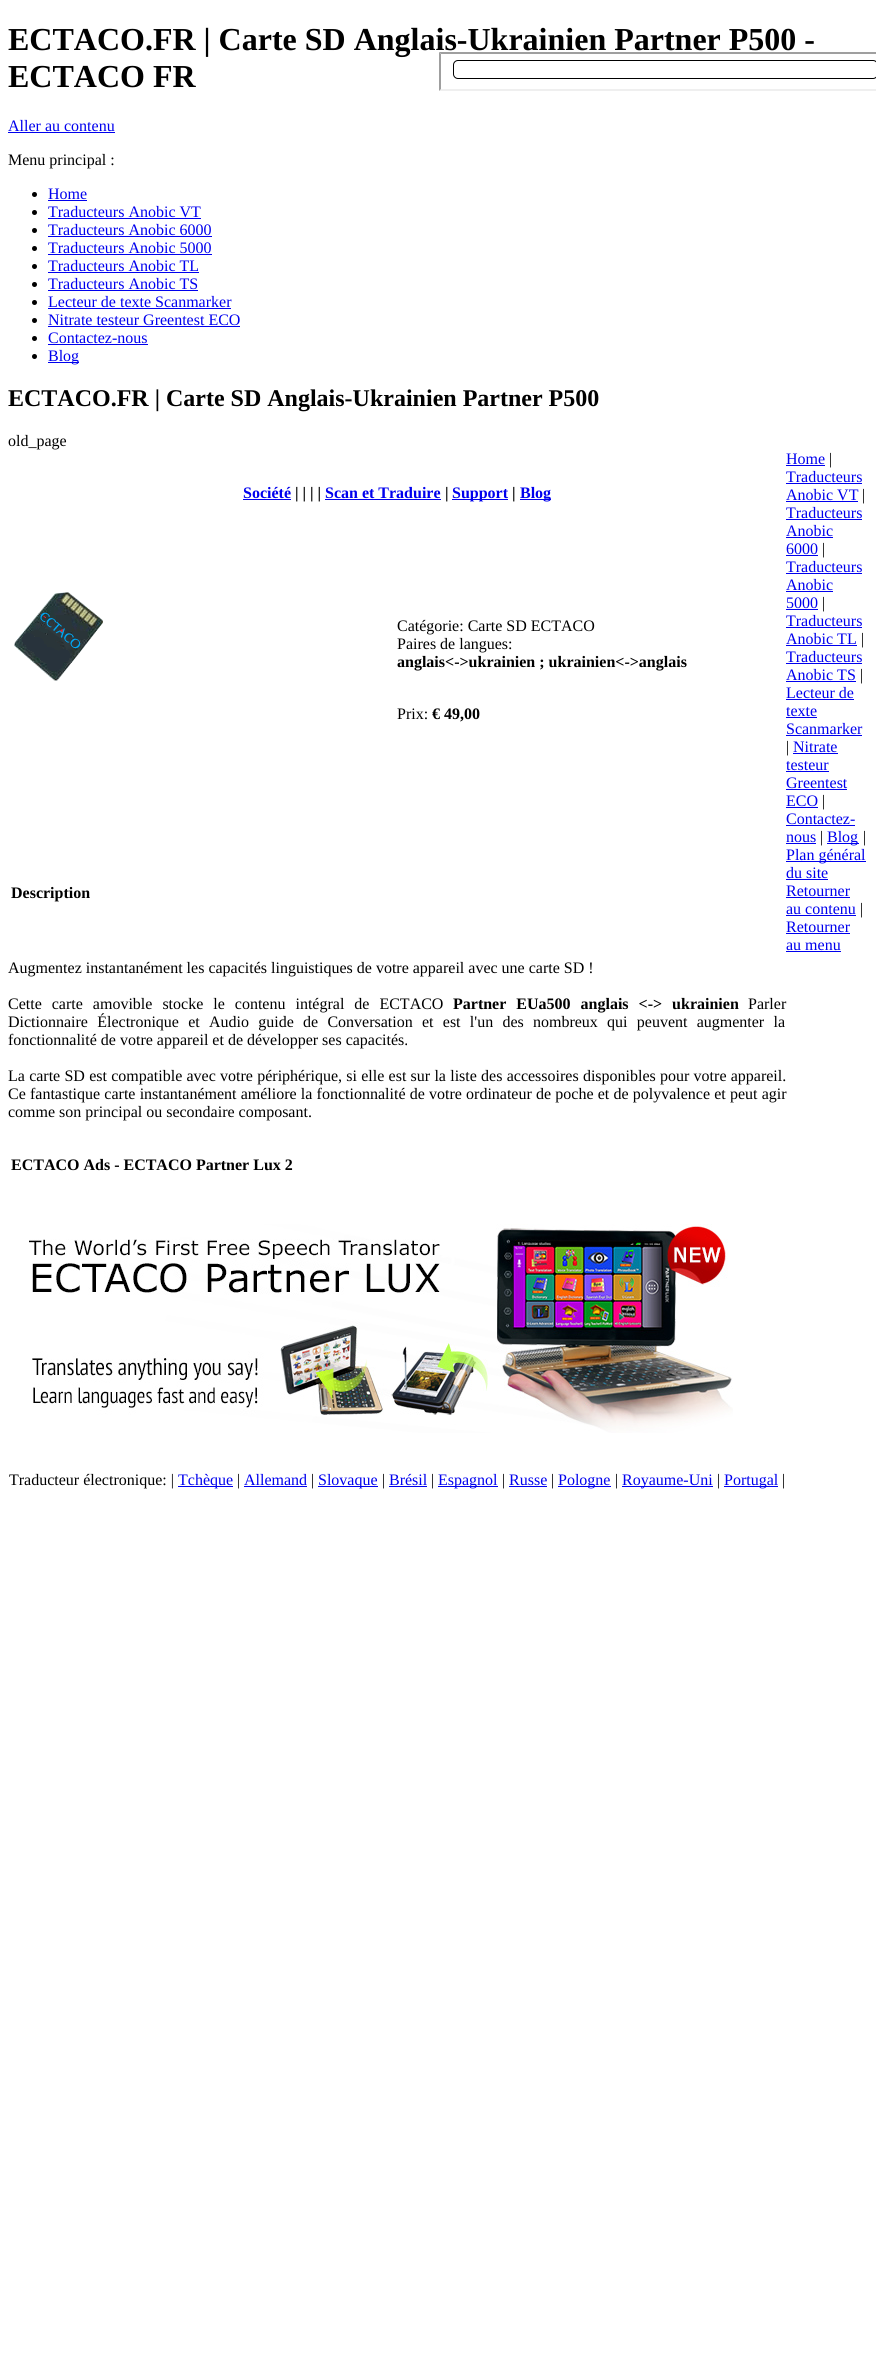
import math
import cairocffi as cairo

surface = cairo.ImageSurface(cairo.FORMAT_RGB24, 876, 2370)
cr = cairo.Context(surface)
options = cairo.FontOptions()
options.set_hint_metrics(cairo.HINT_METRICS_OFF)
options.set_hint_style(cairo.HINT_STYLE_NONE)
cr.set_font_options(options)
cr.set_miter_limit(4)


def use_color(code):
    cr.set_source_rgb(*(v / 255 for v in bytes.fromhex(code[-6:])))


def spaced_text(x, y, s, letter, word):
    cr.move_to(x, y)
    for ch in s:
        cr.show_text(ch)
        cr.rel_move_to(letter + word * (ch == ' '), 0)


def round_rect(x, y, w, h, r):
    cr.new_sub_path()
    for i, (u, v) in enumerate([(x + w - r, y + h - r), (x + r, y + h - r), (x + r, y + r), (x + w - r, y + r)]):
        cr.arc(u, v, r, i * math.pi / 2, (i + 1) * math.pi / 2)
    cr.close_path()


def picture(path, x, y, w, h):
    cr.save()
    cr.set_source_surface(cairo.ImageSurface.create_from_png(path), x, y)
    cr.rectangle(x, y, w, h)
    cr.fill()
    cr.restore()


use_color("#ffffff")
cr.paint()
cr.select_font_face("Liberation Serif", cairo.FONT_SLANT_NORMAL, cairo.FONT_WEIGHT_BOLD)
cr.set_font_size(32)
use_color("#000000")
cr.move_to(8, 50)
cr.show_text("ECTACO.FR | Carte SD Anglais-Ukrainien Partner P500 -")
cr.move_to(8, 87)
cr.show_text("ECTACO FR")
use_color("#9f9f9f")
cr.new_path()
cr.move_to(439, 52)
cr.line_to(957, 52)
cr.line_to(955, 54)
cr.line_to(441, 54)
cr.close_path()
cr.fill()
use_color("#efefef")
cr.new_path()
cr.move_to(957, 91)
cr.line_to(439, 91)
cr.line_to(441, 89)
cr.line_to(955, 89)
cr.close_path()
cr.fill()
use_color("#9f9f9f")
cr.new_path()
cr.move_to(439, 91)
cr.line_to(439, 52)
cr.line_to(441, 54)
cr.line_to(441, 89)
cr.close_path()
cr.fill()
round_rect(453.5, 60.5, 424, 18, 4.5)
use_color("#000000")
cr.set_line_width(1)
cr.stroke()
cr.select_font_face("Liberation Serif")
cr.set_font_size(16)
use_color("#0000ee")
cr.move_to(8, 131)
cr.show_text("Aller au contenu")
cr.rectangle(8, 132, 107, 1)
cr.fill()
use_color("#000000")
cr.move_to(8, 165)
cr.show_text("Menu principal :")
cr.new_path()
cr.arc(34.5, 194.5, 2.5, 0, 2 * math.pi)
cr.fill()
use_color("#0000ee")
cr.move_to(48, 199)
cr.show_text("Home")
cr.rectangle(48, 200, 39, 1)
cr.fill()
use_color("#000000")
cr.arc(34.5, 212.5, 2.5, 0, 2 * math.pi)
cr.fill()
use_color("#0000ee")
cr.move_to(48, 217)
cr.show_text("Traducteurs Anobic VT")
cr.rectangle(48, 218, 153, 1)
cr.fill()
use_color("#000000")
cr.arc(34.5, 230.5, 2.5, 0, 2 * math.pi)
cr.fill()
use_color("#0000ee")
cr.move_to(48, 235)
cr.show_text("Traducteurs Anobic 6000")
cr.rectangle(48, 236, 164, 1)
cr.fill()
use_color("#000000")
cr.arc(34.5, 248.5, 2.5, 0, 2 * math.pi)
cr.fill()
use_color("#0000ee")
cr.move_to(48, 253)
cr.show_text("Traducteurs Anobic 5000")
cr.rectangle(48, 254, 164, 1)
cr.fill()
use_color("#000000")
cr.arc(34.5, 266.5, 2.5, 0, 2 * math.pi)
cr.fill()
use_color("#0000ee")
cr.move_to(48, 271)
cr.show_text("Traducteurs Anobic TL")
cr.rectangle(48, 272, 151, 1)
cr.fill()
use_color("#000000")
cr.arc(34.5, 284.5, 2.5, 0, 2 * math.pi)
cr.fill()
use_color("#0000ee")
cr.move_to(48, 289)
cr.show_text("Traducteurs Anobic TS")
cr.rectangle(48, 290, 150, 1)
cr.fill()
use_color("#000000")
cr.arc(34.5, 302.5, 2.5, 0, 2 * math.pi)
cr.fill()
use_color("#0000ee")
cr.move_to(48, 307)
cr.show_text("Lecteur de texte Scanmarker")
cr.rectangle(48, 308, 183, 1)
cr.fill()
use_color("#000000")
cr.arc(34.5, 320.5, 2.5, 0, 2 * math.pi)
cr.fill()
use_color("#0000ee")
cr.move_to(48, 325)
cr.show_text("Nitrate testeur Greentest ECO")
cr.rectangle(48, 326, 192, 1)
cr.fill()
use_color("#000000")
cr.arc(34.5, 338.5, 2.5, 0, 2 * math.pi)
cr.fill()
use_color("#0000ee")
cr.move_to(48, 343)
cr.show_text("Contactez-nous")
cr.rectangle(48, 344, 100, 1)
cr.fill()
use_color("#000000")
cr.arc(34.5, 356.5, 2.5, 0, 2 * math.pi)
cr.fill()
use_color("#0000ee")
cr.rectangle(48, 362, 31, 1)
cr.fill()
cr.move_to(48, 361)
cr.show_text("Blog")
cr.select_font_face("Liberation Serif", cairo.FONT_SLANT_NORMAL, cairo.FONT_WEIGHT_BOLD)
cr.set_font_size(24)
use_color("#000000")
cr.move_to(8, 406)
cr.show_text("ECTACO.FR | Carte SD Anglais-Ukrainien Partner P500")
cr.select_font_face("Liberation Serif")
cr.set_font_size(16)
cr.move_to(8, 446)
cr.show_text("old_page")
cr.select_font_face("Liberation Serif", cairo.FONT_SLANT_NORMAL, cairo.FONT_WEIGHT_BOLD)
use_color("#0000ee")
cr.move_to(243, 498)
cr.show_text("Société")
cr.rectangle(243, 499, 48, 1)
cr.fill()
use_color("#000000")
cr.move_to(295, 498)
cr.show_text("| | | |")
use_color("#0000ee")
cr.move_to(325, 498)
cr.show_text("Scan et Traduire")
cr.rectangle(325, 499, 116, 1)
cr.fill()
use_color("#000000")
cr.move_to(445, 498)
cr.show_text("|")
use_color("#0000ee")
cr.rectangle(452, 499, 56, 1)
cr.fill()
cr.move_to(452, 498)
cr.show_text("Support")
use_color("#000000")
cr.move_to(512, 498)
cr.show_text("|")
use_color("#0000ee")
cr.rectangle(520, 499, 31, 1)
cr.fill()
cr.move_to(520, 498)
cr.show_text("Blog")
cr.select_font_face("Liberation Serif")
cr.move_to(786, 464)
cr.show_text("Home")
cr.rectangle(786, 465, 39, 1)
cr.fill()
use_color("#000000")
cr.move_to(829, 464)
cr.show_text("|")
use_color("#0000ee")
cr.move_to(786, 482)
cr.show_text("Traducteurs")
cr.rectangle(786, 483, 76, 1)
cr.fill()
cr.move_to(786, 500)
cr.show_text("Anobic VT")
cr.rectangle(786, 501, 72, 1)
cr.fill()
use_color("#000000")
cr.move_to(862, 500)
cr.show_text("|")
use_color("#0000ee")
cr.move_to(786, 518)
cr.show_text("Traducteurs")
cr.rectangle(786, 519, 76, 1)
cr.fill()
cr.move_to(786, 536)
cr.show_text("Anobic")
cr.rectangle(786, 537, 47, 1)
cr.fill()
cr.move_to(786, 554)
cr.show_text("6000")
cr.rectangle(786, 555, 32, 1)
cr.fill()
use_color("#000000")
cr.move_to(822, 554)
cr.show_text("|")
use_color("#0000ee")
cr.move_to(786, 572)
cr.show_text("Traducteurs")
cr.rectangle(786, 573, 76, 1)
cr.fill()
cr.move_to(786, 590)
cr.show_text("Anobic")
cr.rectangle(786, 591, 47, 1)
cr.fill()
cr.move_to(786, 608)
cr.show_text("5000")
cr.rectangle(786, 609, 32, 1)
cr.fill()
use_color("#000000")
cr.move_to(822, 608)
cr.show_text("|")
use_color("#0000ee")
cr.move_to(786, 626)
cr.show_text("Traducteurs")
cr.rectangle(786, 627, 76, 1)
cr.fill()
cr.move_to(786, 644)
cr.show_text("Anobic TL")
cr.rectangle(786, 645, 71, 1)
cr.fill()
use_color("#000000")
cr.move_to(861, 644)
cr.show_text("|")
use_color("#0000ee")
cr.move_to(786, 662)
cr.show_text("Traducteurs")
cr.rectangle(786, 663, 76, 1)
cr.fill()
cr.move_to(786, 680)
cr.show_text("Anobic TS")
cr.rectangle(786, 681, 70, 1)
cr.fill()
use_color("#000000")
cr.move_to(860, 680)
cr.show_text("|")
use_color("#0000ee")
cr.move_to(786, 698)
cr.show_text("Lecteur de")
cr.rectangle(786, 699, 68, 1)
cr.fill()
cr.move_to(786, 716)
cr.show_text("texte")
cr.rectangle(786, 717, 31, 1)
cr.fill()
cr.move_to(786, 734)
cr.show_text("Scanmarker")
cr.rectangle(786, 735, 76, 1)
cr.fill()
use_color("#000000")
cr.move_to(786, 752)
cr.show_text("|")
use_color("#0000ee")
cr.move_to(793, 752)
cr.show_text("Nitrate")
cr.rectangle(793, 753, 45, 1)
cr.fill()
cr.move_to(786, 770)
cr.show_text("testeur")
cr.rectangle(786, 771, 43, 1)
cr.fill()
cr.move_to(786, 788)
cr.show_text("Greentest")
cr.rectangle(786, 789, 61, 1)
cr.fill()
cr.move_to(786, 806)
cr.show_text("ECO")
cr.rectangle(786, 807, 32, 1)
cr.fill()
use_color("#000000")
cr.move_to(822, 806)
cr.show_text("|")
use_color("#0000ee")
cr.move_to(786, 824)
cr.show_text("Contactez-")
cr.rectangle(786, 825, 69, 1)
cr.fill()
cr.move_to(786, 842)
cr.show_text("nous")
cr.rectangle(786, 843, 30, 1)
cr.fill()
use_color("#000000")
cr.move_to(820, 842)
cr.show_text("|")
use_color("#0000ee")
cr.rectangle(827, 843, 32, 1)
cr.fill()
cr.move_to(827, 842)
cr.show_text("Blog")
use_color("#000000")
cr.move_to(863, 842)
cr.show_text("|")
use_color("#0000ee")
cr.rectangle(786, 861, 80, 1)
cr.fill()
cr.move_to(786, 860)
cr.show_text("Plan général")
cr.move_to(786, 878)
cr.show_text("du site")
cr.rectangle(786, 879, 42, 1)
cr.fill()
picture("img1.png", 14, 592, 89, 89)
use_color("#000000")
cr.move_to(397, 631)
cr.show_text("Catégorie: Carte SD ECTACO")
cr.move_to(397, 649)
cr.show_text("Paires de langues:")
cr.select_font_face("Liberation Serif", cairo.FONT_SLANT_NORMAL, cairo.FONT_WEIGHT_BOLD)
cr.move_to(397, 667)
cr.show_text("anglais<->ukrainien ; ukrainien<->anglais")
cr.select_font_face("Liberation Serif")
cr.move_to(397, 719)
cr.show_text("Prix:")
cr.select_font_face("Liberation Serif", cairo.FONT_SLANT_NORMAL, cairo.FONT_WEIGHT_BOLD)
cr.move_to(432, 719)
cr.show_text("€ 49,00")
cr.move_to(11, 898)
cr.show_text("Description")
cr.select_font_face("Liberation Serif")
cr.move_to(8, 973)
cr.show_text("Augmentez instantanément les capacités linguistiques de votre appareil avec une carte SD !")
spaced_text(8, 1009, "Cette carte amovible stocke le contenu intégral de ECTACO", 0, 6)
cr.select_font_face("Liberation Serif", cairo.FONT_SLANT_NORMAL, cairo.FONT_WEIGHT_BOLD)
spaced_text(453, 1009, "Partner EUa500 anglais <-> ukrainien", 0, 6)
cr.select_font_face("Liberation Serif")
cr.move_to(748, 1009)
cr.show_text("Parler")
spaced_text(8, 1027, "Dictionnaire Électronique et Audio guide de Conversation et est l'un des nombreux qui peuvent augmenter la", 0, 5.25)
cr.move_to(8, 1045)
cr.show_text("fonctionnalité de votre appareil et de développer ses capacités.")
spaced_text(8, 1081, "La carte SD est compatible avec votre périphérique, si elle est sur la liste des accessoires disponibles pour votre appareil.", 0, 0.25)
spaced_text(8, 1099, "Ce fantastique carte instantanément améliore la fonctionnalité de votre ordinateur de poche et de polyvalence et peut agir", 0, 0.2)
cr.move_to(8, 1117)
cr.show_text("comme son principal ou secondaire composant.")
cr.select_font_face("Liberation Serif", cairo.FONT_SLANT_NORMAL, cairo.FONT_WEIGHT_BOLD)
cr.move_to(11, 1170)
cr.show_text("ECTACO Ads - ECTACO Partner Lux 2")
picture("img2.png", 29, 1224, 704, 209)
cr.select_font_face("Liberation Serif")
cr.move_to(9, 1485)
cr.show_text("Traducteur électronique: |")
use_color("#0000ee")
cr.rectangle(178, 1486, 55, 1)
cr.fill()
cr.move_to(178, 1485)
cr.show_text("Tchèque")
use_color("#000000")
cr.move_to(237, 1485)
cr.show_text("|")
use_color("#0000ee")
cr.move_to(244, 1485)
cr.show_text("Allemand")
cr.rectangle(244, 1486, 63, 1)
cr.fill()
use_color("#000000")
cr.move_to(311, 1485)
cr.show_text("|")
use_color("#0000ee")
cr.rectangle(318, 1486, 60, 1)
cr.fill()
cr.move_to(318, 1485)
cr.show_text("Slovaque")
use_color("#000000")
cr.move_to(382, 1485)
cr.show_text("|")
use_color("#0000ee")
cr.move_to(389, 1485)
cr.show_text("Brésil")
cr.rectangle(389, 1486, 38, 1)
cr.fill()
use_color("#000000")
cr.move_to(431, 1485)
cr.show_text("|")
use_color("#0000ee")
cr.rectangle(438, 1486, 60, 1)
cr.fill()
cr.move_to(438, 1485)
cr.show_text("Espagnol")
use_color("#000000")
cr.move_to(502, 1485)
cr.show_text("|")
use_color("#0000ee")
cr.move_to(509, 1485)
cr.show_text("Russe")
cr.rectangle(509, 1486, 38, 1)
cr.fill()
use_color("#000000")
cr.move_to(551, 1485)
cr.show_text("|")
use_color("#0000ee")
cr.rectangle(558, 1486, 53, 1)
cr.fill()
cr.move_to(558, 1485)
cr.show_text("Pologne")
use_color("#000000")
cr.move_to(615, 1485)
cr.show_text("|")
use_color("#0000ee")
cr.rectangle(622, 1486, 91, 1)
cr.fill()
cr.move_to(622, 1485)
cr.show_text("Royaume-Uni")
use_color("#000000")
cr.move_to(717, 1485)
cr.show_text("|")
use_color("#0000ee")
cr.rectangle(724, 1486, 54, 1)
cr.fill()
cr.move_to(724, 1485)
cr.show_text("Portugal")
use_color("#000000")
cr.move_to(782, 1485)
cr.show_text("|")
use_color("#0000ee")
cr.move_to(786, 896)
cr.show_text("Retourner")
cr.rectangle(786, 897, 64, 1)
cr.fill()
cr.move_to(786, 914)
cr.show_text("au contenu")
cr.rectangle(786, 915, 70, 1)
cr.fill()
use_color("#000000")
cr.move_to(860, 914)
cr.show_text("|")
use_color("#0000ee")
cr.move_to(786, 932)
cr.show_text("Retourner")
cr.rectangle(786, 933, 64, 1)
cr.fill()
cr.move_to(786, 950)
cr.show_text("au menu")
cr.rectangle(786, 951, 55, 1)
cr.fill()
surface.write_to_png("result.png")
